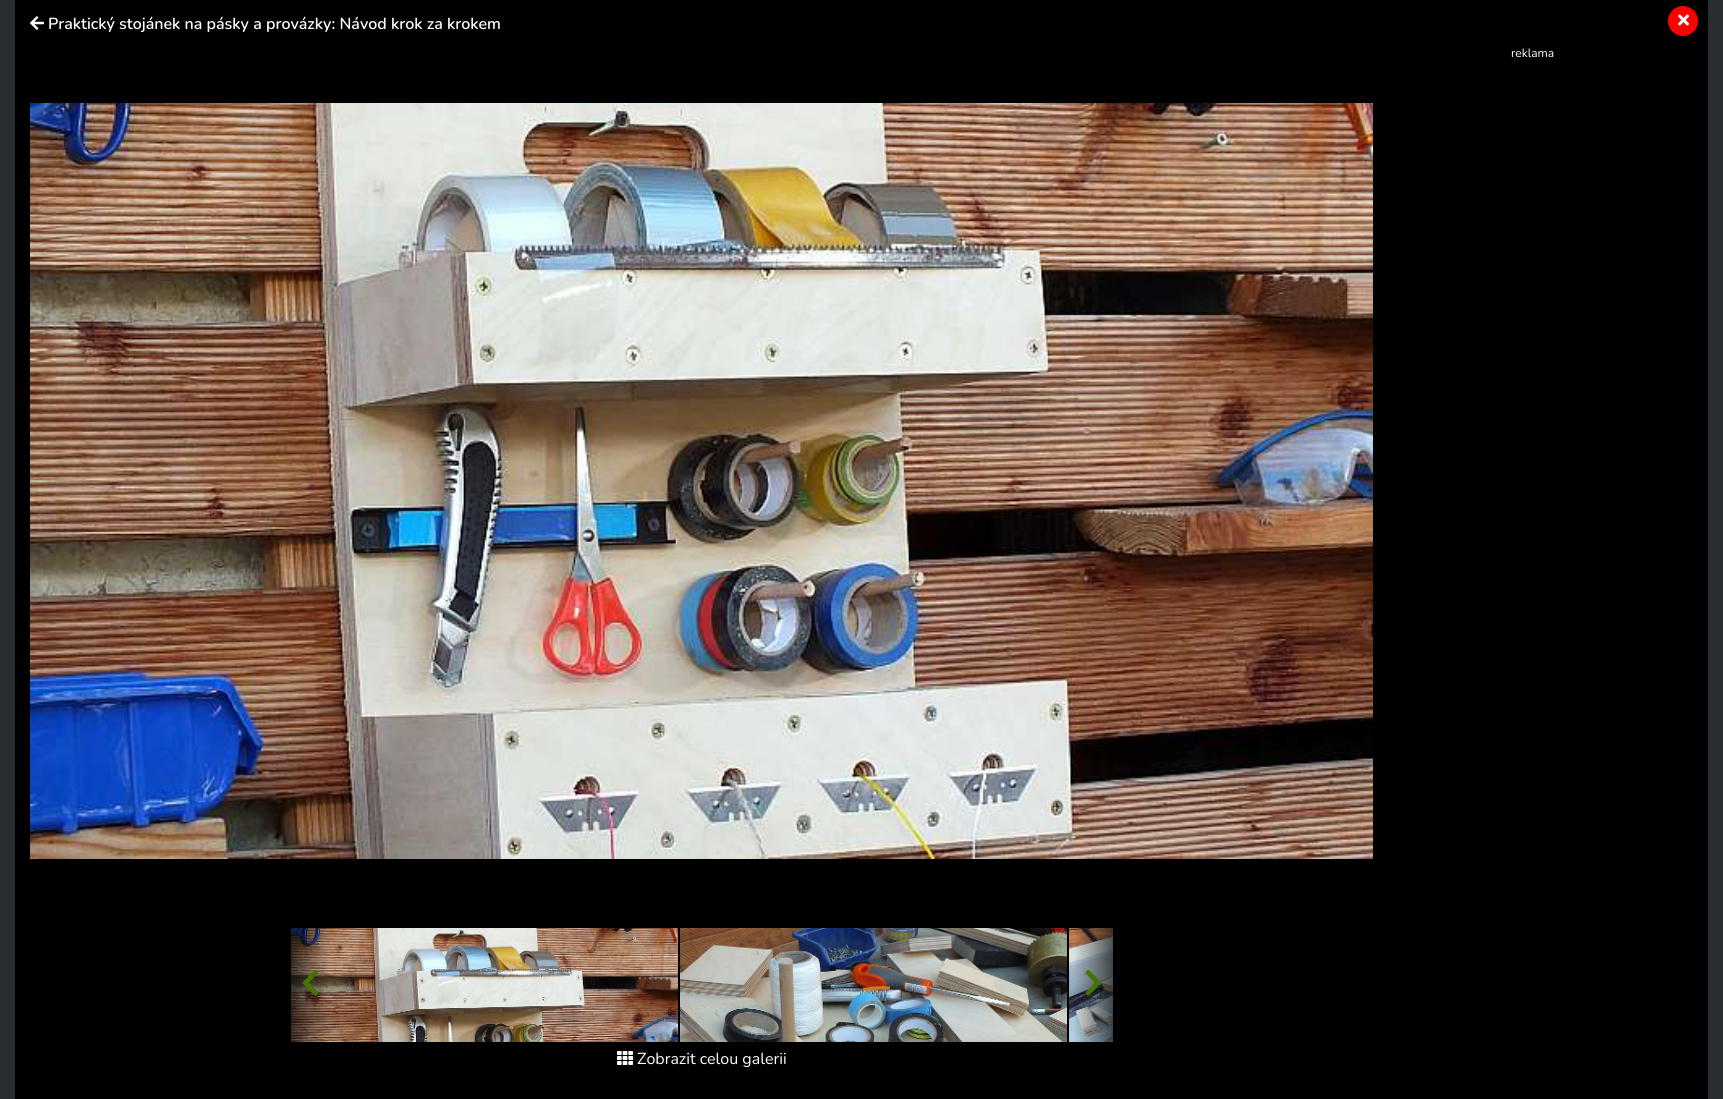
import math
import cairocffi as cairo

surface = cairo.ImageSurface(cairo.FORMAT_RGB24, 1723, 1099)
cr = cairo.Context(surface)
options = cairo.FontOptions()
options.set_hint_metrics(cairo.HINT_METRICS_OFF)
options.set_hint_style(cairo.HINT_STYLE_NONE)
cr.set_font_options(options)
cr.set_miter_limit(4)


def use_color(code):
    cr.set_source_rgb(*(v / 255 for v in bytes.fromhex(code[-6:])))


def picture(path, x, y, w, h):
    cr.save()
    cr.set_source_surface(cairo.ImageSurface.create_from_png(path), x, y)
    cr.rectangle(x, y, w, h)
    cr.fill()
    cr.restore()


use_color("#282d32")
cr.paint()
use_color("#000000")
cr.rectangle(15, 0, 1693, 1099)
cr.fill()
picture("img1.png", 30, 16, 14, 14)
cr.select_font_face("Nunito SemiBold")
cr.set_font_size(16)
use_color("#ffffff")
cr.move_to(48, 29)
cr.show_text("Praktický stojánek na pásky a provázky: Návod krok za krokem")
use_color("#ff0000")
cr.new_path()
cr.arc(1683, 21, 15, 0, 2 * math.pi)
cr.fill()
picture("img2.png", 1678, 14, 11, 12)
cr.select_font_face("Nunito")
cr.set_font_size(12)
use_color("#ffffff")
cr.move_to(1511, 57)
cr.show_text("reklama")
picture("img3.png", 30, 103, 1343, 756)
picture("img4.png", 291, 928, 387, 114)
picture("img5.png", 680, 928, 387, 114)
picture("img6.png", 1069, 928, 44, 114)
gradient = cairo.LinearGradient(290, 985, 330, 985)
gradient.add_color_stop_rgba(0, 0, 0, 0, 0.65)
gradient.add_color_stop_rgba(1, 0, 0, 0, 0)
cr.set_source(gradient)
cr.rectangle(291, 928, 38, 114)
cr.fill()
picture("img7.png", 302, 970, 17, 26)
picture("img8.png", 1085, 970, 17, 26)
picture("img9.png", 617, 1051, 16, 14)
cr.set_font_size(16)
use_color("#ffffff")
cr.move_to(637, 1064)
cr.show_text("Zobrazit celou galerii")
surface.write_to_png("result.png")
